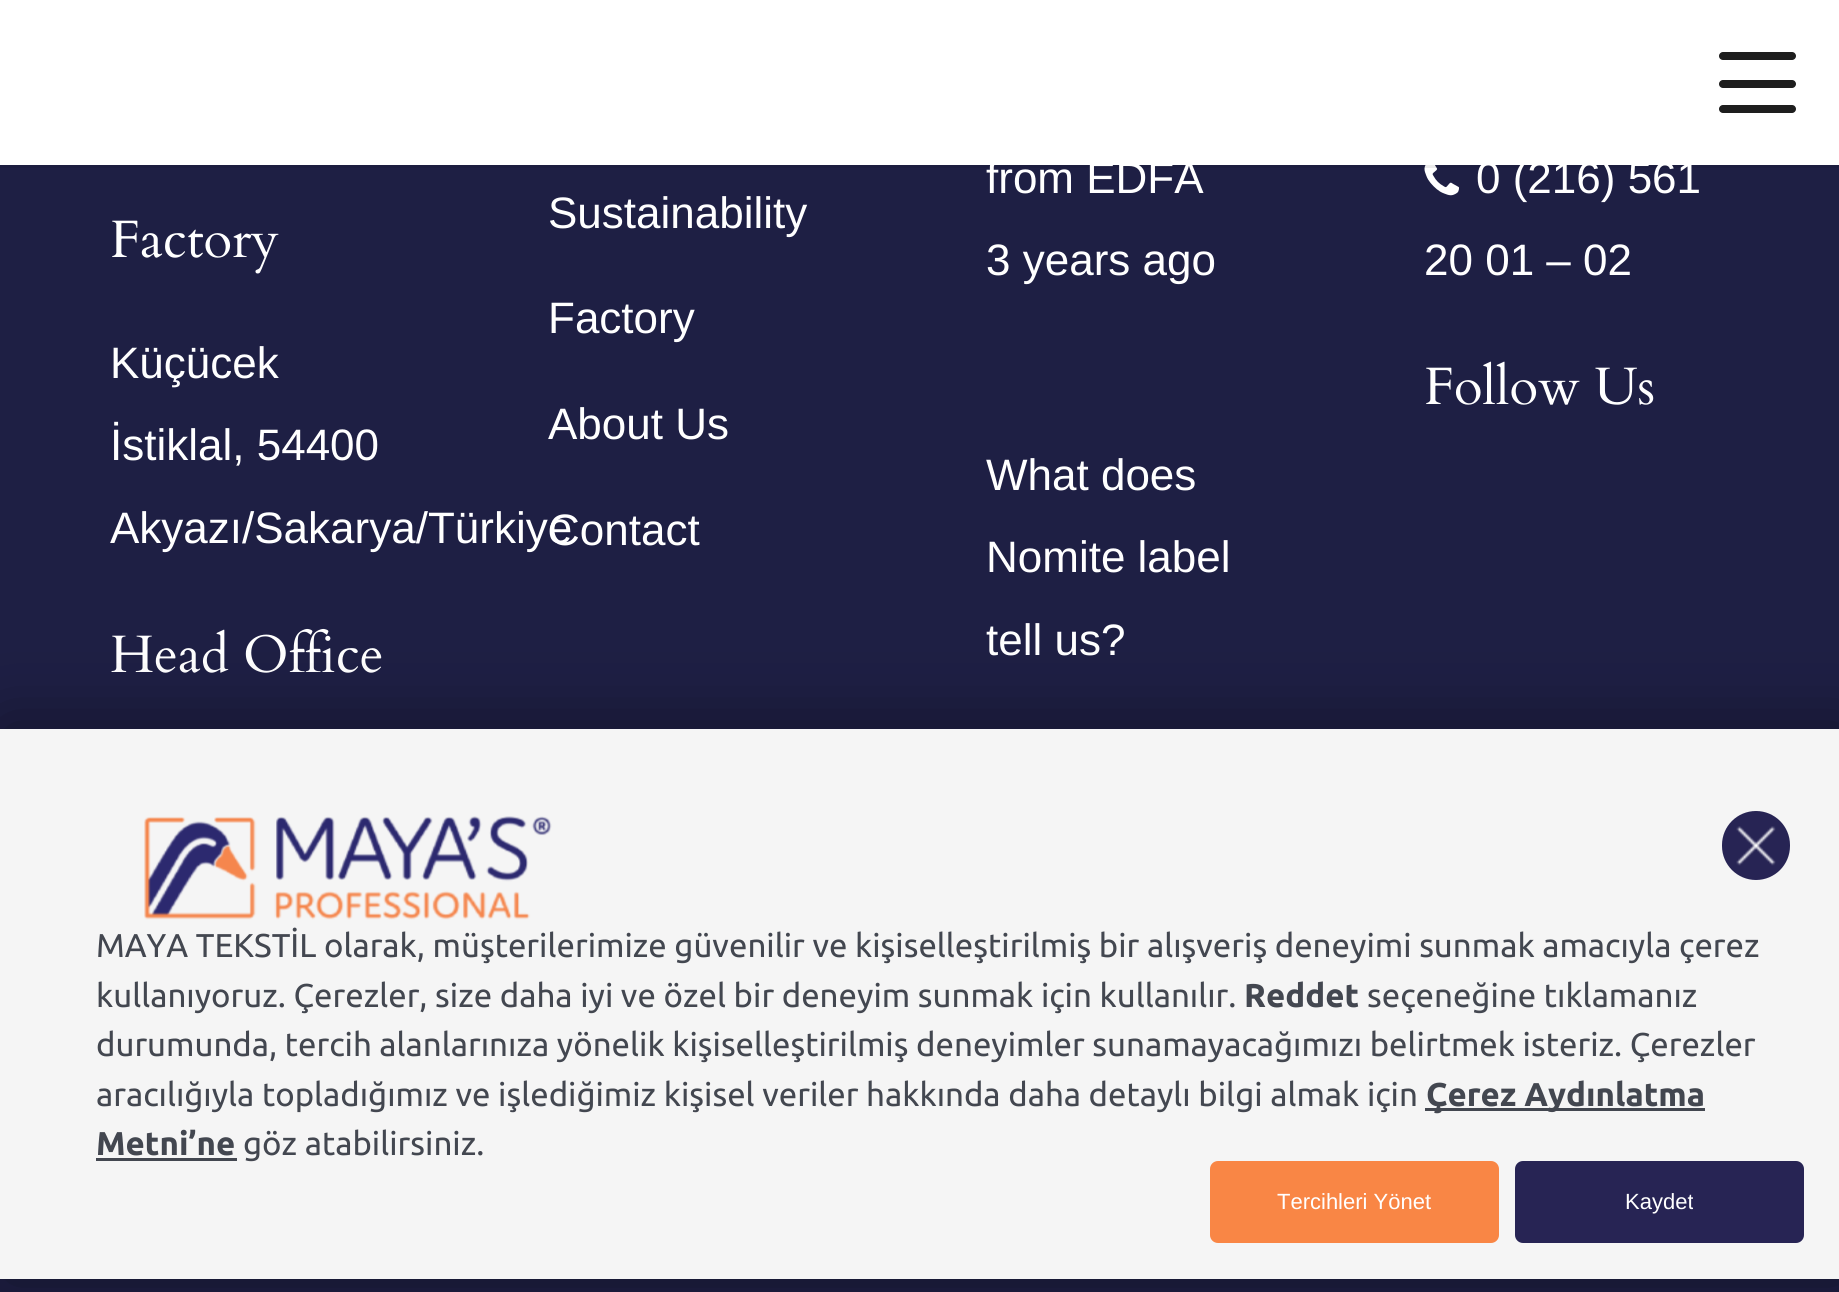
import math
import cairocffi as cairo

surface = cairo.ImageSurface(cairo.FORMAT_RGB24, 1839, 1292)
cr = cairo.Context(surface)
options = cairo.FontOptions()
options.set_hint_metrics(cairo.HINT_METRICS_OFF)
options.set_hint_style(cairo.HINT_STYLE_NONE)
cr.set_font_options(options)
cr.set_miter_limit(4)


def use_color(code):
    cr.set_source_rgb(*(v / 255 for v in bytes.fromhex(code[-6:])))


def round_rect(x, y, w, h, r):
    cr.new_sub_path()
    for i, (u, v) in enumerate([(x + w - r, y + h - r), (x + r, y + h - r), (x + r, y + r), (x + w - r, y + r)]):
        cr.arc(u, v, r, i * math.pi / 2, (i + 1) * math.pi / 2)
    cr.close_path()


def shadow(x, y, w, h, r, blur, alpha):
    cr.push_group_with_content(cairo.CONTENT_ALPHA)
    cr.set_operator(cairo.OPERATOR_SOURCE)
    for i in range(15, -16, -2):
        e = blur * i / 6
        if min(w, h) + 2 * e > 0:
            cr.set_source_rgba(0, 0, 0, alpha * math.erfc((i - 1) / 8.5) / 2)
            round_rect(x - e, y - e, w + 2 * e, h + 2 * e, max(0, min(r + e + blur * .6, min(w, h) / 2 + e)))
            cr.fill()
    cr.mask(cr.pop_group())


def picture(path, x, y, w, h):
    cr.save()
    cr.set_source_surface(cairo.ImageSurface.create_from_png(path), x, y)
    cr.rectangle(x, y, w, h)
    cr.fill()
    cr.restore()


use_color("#1e1f44")
cr.paint()
picture("img1.png", 1424, 165, 35, 31)
cr.set_source_rgba(0, 0, 0, 0.08)
cr.new_path()
cr.move_to(0, 165)
cr.line_to(0, 168)
cr.line_to(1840, 168)
cr.line_to(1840, 3)
cr.line_to(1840, 165)
cr.close_path()
cr.fill()
use_color("#ffffff")
cr.rectangle(0, 0, 1839, 165)
cr.fill()
use_color("#1e1e1e")
round_rect(1719, 80, 77, 8, 4)
cr.fill()
round_rect(1719, 52, 77, 8, 4)
cr.fill()
round_rect(1719, 105, 77, 8, 4)
cr.fill()
cr.select_font_face("Cardo")
cr.set_font_size(52.75)
use_color("#ffffff")
cr.move_to(110, 257)
cr.show_text("Factory")
cr.select_font_face("Liberation Sans")
cr.set_font_size(44)
cr.move_to(110, 378)
cr.show_text("Küçücek")
cr.move_to(110, 460)
cr.show_text("İstiklal, 54400")
cr.move_to(110, 543)
cr.show_text("Akyazı/Sakarya/Türkiye")
cr.select_font_face("Cardo")
cr.set_font_size(52.75)
cr.move_to(110, 672)
cr.show_text("Head Office")
cr.select_font_face("Liberation Sans")
cr.set_font_size(44)
cr.move_to(548, 228)
cr.show_text("Sustainability")
cr.move_to(548, 333)
cr.show_text("Factory")
cr.move_to(548, 439)
cr.show_text("About Us")
cr.move_to(548, 545)
cr.show_text("Contact")
cr.move_to(986, 193)
cr.show_text("from EDFA")
cr.move_to(986, 275)
cr.show_text("3 years ago")
cr.move_to(986, 490)
cr.show_text("What does")
cr.move_to(986, 572)
cr.show_text("Nomite label")
cr.move_to(986, 655)
cr.show_text("tell us?")
cr.move_to(1476, 193)
cr.show_text("0 (216) 561")
cr.move_to(1424, 275)
cr.show_text("20 01 – 02")
cr.select_font_face("Cardo")
cr.set_font_size(52.75)
cr.move_to(1424, 404)
cr.show_text("Follow Us")
use_color("#000000")
shadow(3, 726, 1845, 556, 0, 34.5, 0.41)
use_color("#f5f5f5")
cr.rectangle(0, 729, 1839, 550)
cr.fill()
picture("img2.png", 144, 816, 408, 104)
use_color("#272454")
round_rect(1722, 811, 68, 69, 34)
cr.fill()
picture("img3.png", 1736, 826, 40, 40)
cr.select_font_face("Ubuntu")
cr.set_font_size(33)
use_color("#434750")
cr.move_to(96, 957)
cr.show_text("MAYA TEKSTİL olarak, müşterilerimize güvenilir ve kişiselleştirilmiş bir alışveriş deneyimi sunmak amacıyla çerez")
cr.move_to(96, 1007)
cr.show_text("kullanıyoruz. Çerezler, size daha iyi ve özel bir deneyim sunmak için kullanılır.")
cr.select_font_face("Ubuntu", cairo.FONT_SLANT_NORMAL, cairo.FONT_WEIGHT_BOLD)
cr.move_to(1244, 1007)
cr.show_text("Reddet")
cr.select_font_face("Ubuntu")
cr.move_to(1367, 1007)
cr.show_text("seçeneğine tıklamanız")
cr.move_to(96, 1056)
cr.show_text("durumunda, tercih alanlarınıza yönelik kişiselleştirilmiş deneyimler sunamayacağımızı belirtmek isteriz. Çerezler")
cr.move_to(96, 1106)
cr.show_text("aracılığıyla topladığımız ve işlediğimiz kişisel veriler hakkında daha detaylı bilgi almak için")
cr.rectangle(1425, 1108, 280, 3)
cr.fill()
cr.select_font_face("Ubuntu", cairo.FONT_SLANT_NORMAL, cairo.FONT_WEIGHT_BOLD)
cr.move_to(1426, 1106)
cr.show_text("Çerez Aydınlatma")
cr.move_to(96, 1155)
cr.show_text("Metni’ne")
cr.rectangle(96, 1158, 141, 3)
cr.fill()
cr.select_font_face("Ubuntu")
cr.move_to(243, 1155)
cr.show_text("göz atabilirsiniz.")
use_color("#f98645")
round_rect(1210, 1161, 289, 82, 8)
cr.fill()
cr.select_font_face("Liberation Sans")
cr.set_font_size(22)
use_color("#ffffff")
cr.move_to(1277, 1209)
cr.show_text("Tercihleri Yönet")
use_color("#272454")
round_rect(1515, 1161, 289, 82, 8)
cr.fill()
use_color("#ffffff")
cr.move_to(1625, 1209)
cr.show_text("Kaydet")
surface.write_to_png("result.png")
